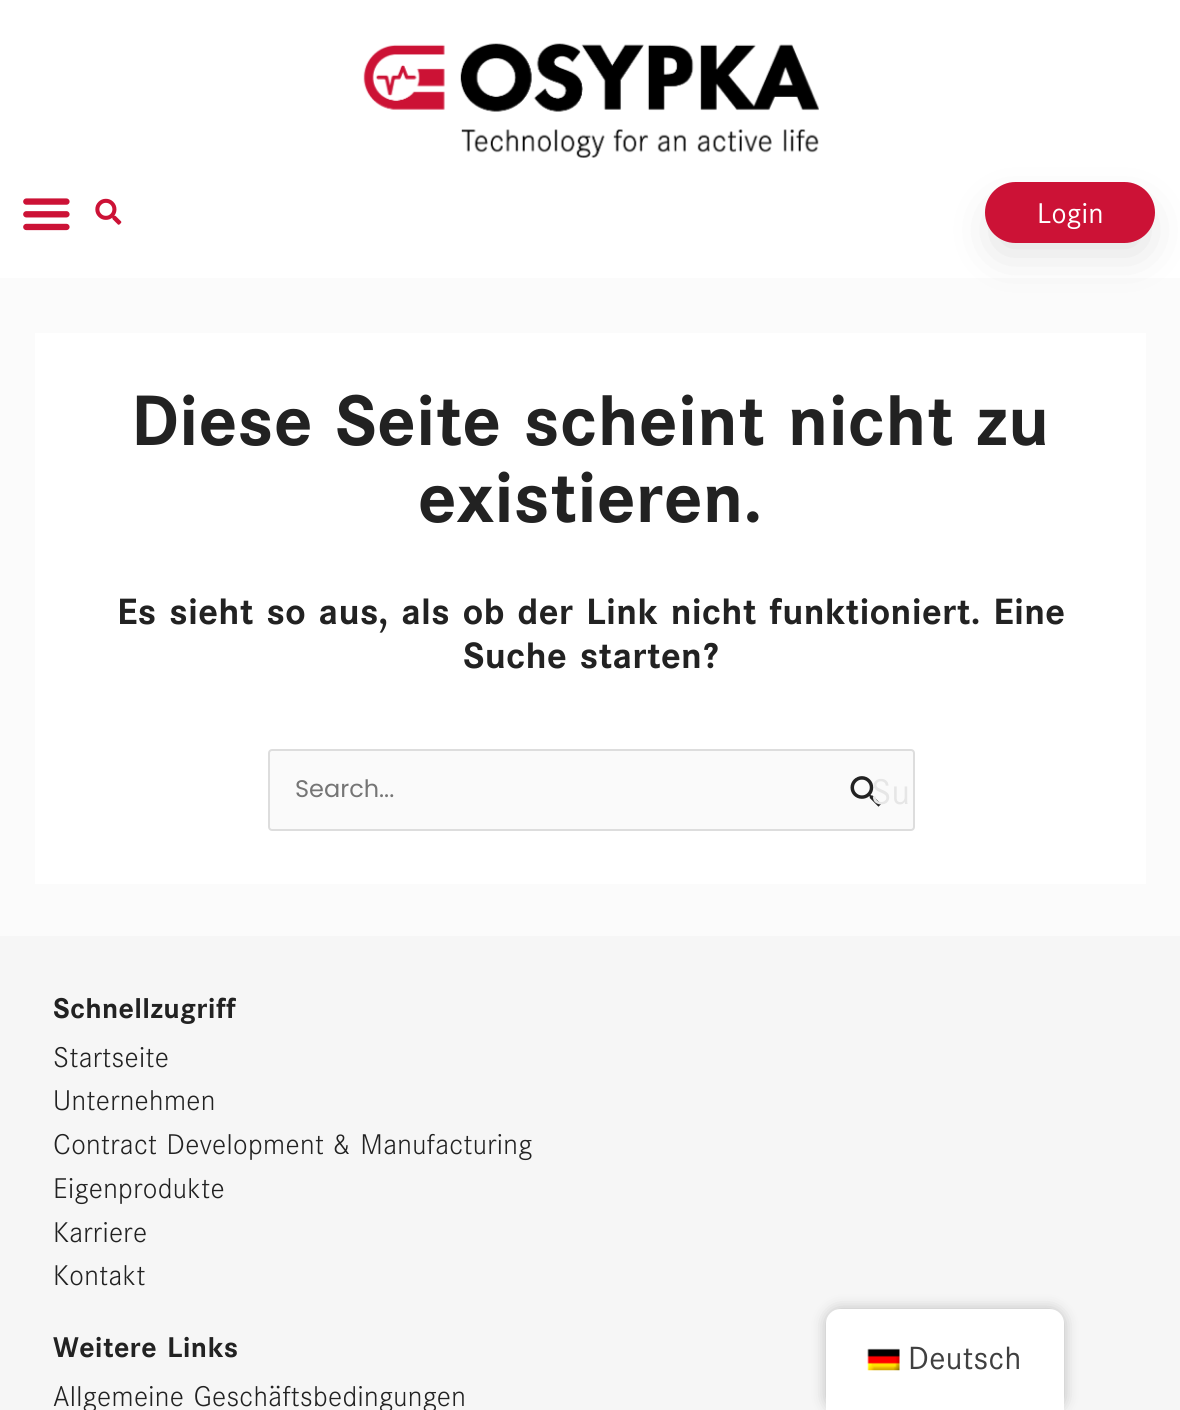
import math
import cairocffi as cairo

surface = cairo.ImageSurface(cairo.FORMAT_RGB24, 1180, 1410)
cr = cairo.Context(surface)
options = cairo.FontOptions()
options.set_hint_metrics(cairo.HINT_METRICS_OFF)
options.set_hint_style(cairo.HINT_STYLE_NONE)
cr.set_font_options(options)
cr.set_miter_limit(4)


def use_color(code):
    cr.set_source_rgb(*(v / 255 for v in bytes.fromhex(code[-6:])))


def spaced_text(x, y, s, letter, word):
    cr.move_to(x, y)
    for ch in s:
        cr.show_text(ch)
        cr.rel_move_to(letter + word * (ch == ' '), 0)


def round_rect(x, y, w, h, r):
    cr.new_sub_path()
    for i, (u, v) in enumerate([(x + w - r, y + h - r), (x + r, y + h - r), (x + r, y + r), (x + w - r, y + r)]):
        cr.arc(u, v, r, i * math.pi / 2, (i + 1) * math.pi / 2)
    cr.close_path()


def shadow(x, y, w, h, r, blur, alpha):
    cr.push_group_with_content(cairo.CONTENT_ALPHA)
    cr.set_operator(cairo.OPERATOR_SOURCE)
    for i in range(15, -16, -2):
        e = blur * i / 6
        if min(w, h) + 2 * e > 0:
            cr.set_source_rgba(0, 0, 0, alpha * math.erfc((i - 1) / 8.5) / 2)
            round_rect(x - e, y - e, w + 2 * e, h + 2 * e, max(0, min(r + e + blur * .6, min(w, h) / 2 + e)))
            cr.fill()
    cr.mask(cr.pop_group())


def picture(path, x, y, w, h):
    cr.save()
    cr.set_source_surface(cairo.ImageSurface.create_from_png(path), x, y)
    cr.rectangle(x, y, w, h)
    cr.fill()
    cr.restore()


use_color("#fbfbfb")
cr.paint()
use_color("#ffffff")
cr.rectangle(0, 0, 1180, 278)
cr.fill()
picture("img1.png", 363, 43, 456, 115)
picture("img2.png", 23, 198, 47, 33)
picture("img3.png", 95, 198, 27, 27)
use_color("#000000")
shadow(1001, 215, 138, 30, 15, 26, 0.16)
use_color("#cc1236")
round_rect(986, 183, 168, 59, 29.5)
cr.fill_preserve()
cr.stroke()
cr.select_font_face("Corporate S")
cr.set_font_size(28)
use_color("#ffffff")
spaced_text(1037, 223, "Login", 0.35, 0)
cr.rectangle(35, 333, 1111, 551)
cr.fill()
cr.select_font_face("Corporate S", cairo.FONT_SLANT_NORMAL, cairo.FONT_WEIGHT_BOLD)
cr.set_font_size(70)
use_color("#222222")
spaced_text(131, 445, "Diese Seite scheint nicht zu", 0.35, 1.75)
spaced_text(418, 522, "existieren.", 0.35, 0)
cr.set_font_size(35.9)
spaced_text(117, 624, "Es sieht so aus, als ob der Link nicht funktioniert. Eine", 0.35, 1.75)
spaced_text(463, 668, "Suche starten?", 0.35, 1.75)
use_color("#fafafa")
round_rect(269, 750, 645, 80, 3)
cr.fill_preserve()
use_color("#dddddd")
cr.stroke()
cr.select_font_face("Poppins")
cr.set_font_size(24)
use_color("#757575")
cr.move_to(295, 797)
cr.show_text("Search...")
picture("img4.png", 850, 776, 31, 31)
cr.select_font_face("Corporate S")
cr.set_font_size(35)
use_color("#e6e6e6")
spaced_text(871, 804, "Su", 0.35, 0)
use_color("#f6f6f6")
cr.rectangle(0, 936, 1180, 474)
cr.fill()
cr.select_font_face("Corporate S", cairo.FONT_SLANT_NORMAL, cairo.FONT_WEIGHT_BOLD)
cr.set_font_size(28)
use_color("#222222")
spaced_text(53, 1018, "Schnellzugriff", 0.35, 0)
cr.select_font_face("Corporate S Light")
spaced_text(53, 1067, "Startseite", 0.35, 0)
spaced_text(53, 1110, "Unternehmen", 0.35, 0)
spaced_text(53, 1154, "Contract Development & Manufacturing", 0.35, 1.75)
spaced_text(53, 1198, "Eigenprodukte", 0.35, 0)
spaced_text(53, 1242, "Karriere", 0.35, 0)
spaced_text(53, 1285, "Kontakt", 0.35, 0)
cr.select_font_face("Corporate S", cairo.FONT_SLANT_NORMAL, cairo.FONT_WEIGHT_BOLD)
spaced_text(53, 1357, "Weitere Links", 0.35, 1.75)
cr.select_font_face("Corporate S Light")
spaced_text(53, 1406, "Allgemeine Geschäftsbedingungen", 0.35, 1.75)
use_color("#000000")
shadow(826, 1309, 238, 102, 14, 7, 0.25)
use_color("#ffffff")
cr.new_path()
cr.move_to(840, 1309)
cr.line_to(1050, 1309)
cr.curve_to(1057.5, 1309, 1064, 1315.5, 1064, 1323)
cr.line_to(1064, 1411)
cr.line_to(826, 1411)
cr.line_to(826, 1323)
cr.curve_to(826, 1315.5, 832.5, 1309, 840, 1309)
cr.close_path()
cr.fill()
picture("img5.png", 867, 1348, 33, 23)
cr.select_font_face("Corporate S")
cr.set_font_size(31.5)
use_color("#404040")
spaced_text(908, 1369, "Deutsch", 0.35, 0)
surface.write_to_png("result.png")
